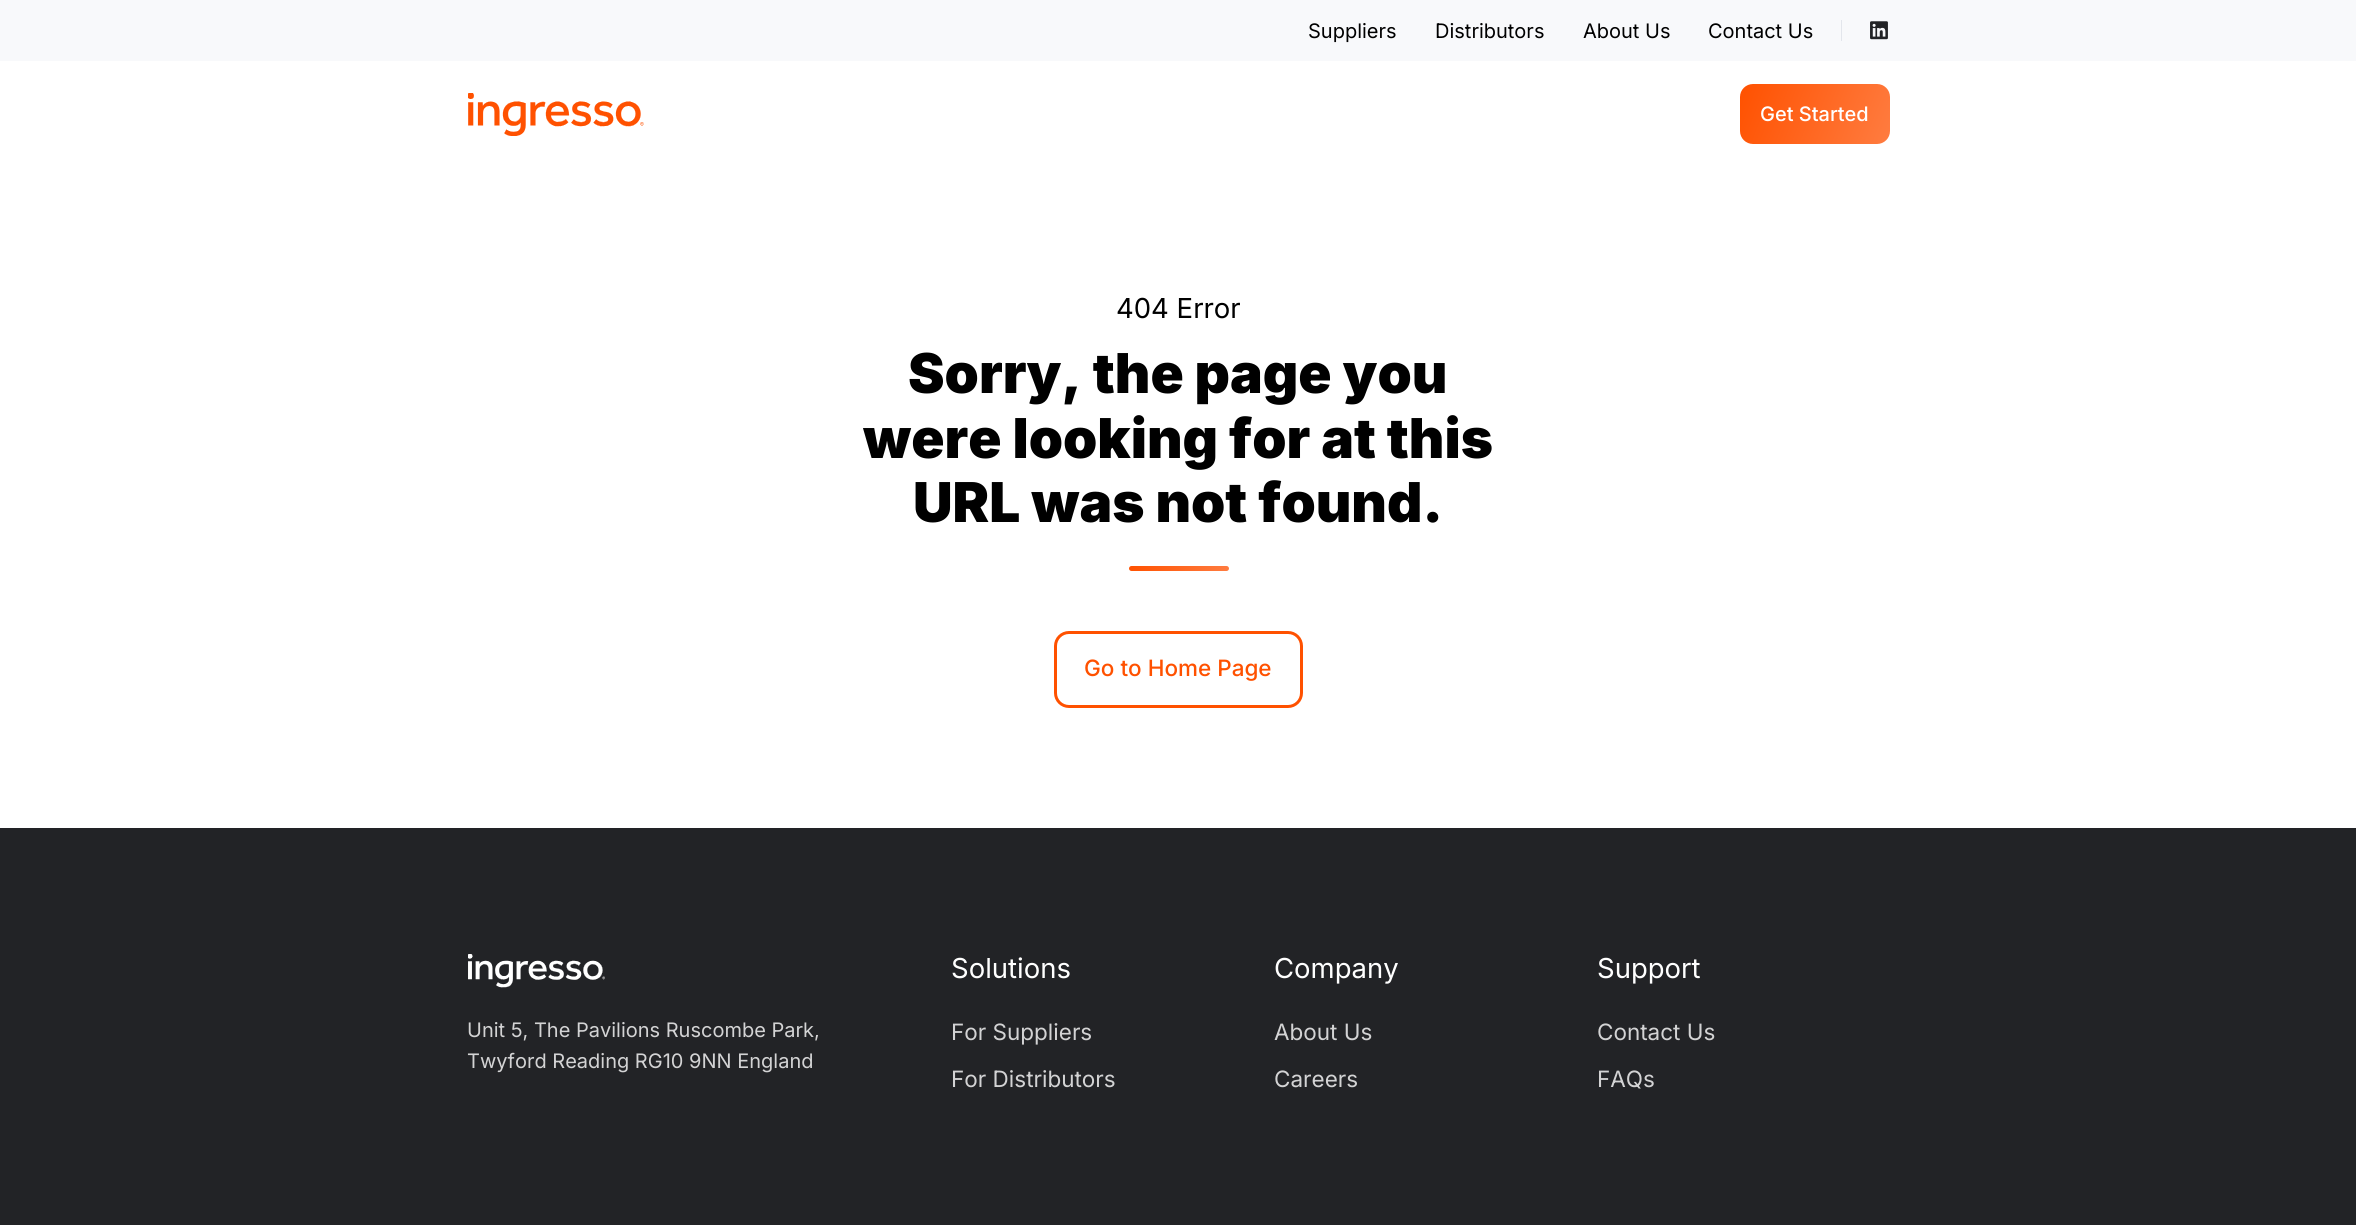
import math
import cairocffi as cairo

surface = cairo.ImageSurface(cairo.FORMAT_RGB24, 2356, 1225)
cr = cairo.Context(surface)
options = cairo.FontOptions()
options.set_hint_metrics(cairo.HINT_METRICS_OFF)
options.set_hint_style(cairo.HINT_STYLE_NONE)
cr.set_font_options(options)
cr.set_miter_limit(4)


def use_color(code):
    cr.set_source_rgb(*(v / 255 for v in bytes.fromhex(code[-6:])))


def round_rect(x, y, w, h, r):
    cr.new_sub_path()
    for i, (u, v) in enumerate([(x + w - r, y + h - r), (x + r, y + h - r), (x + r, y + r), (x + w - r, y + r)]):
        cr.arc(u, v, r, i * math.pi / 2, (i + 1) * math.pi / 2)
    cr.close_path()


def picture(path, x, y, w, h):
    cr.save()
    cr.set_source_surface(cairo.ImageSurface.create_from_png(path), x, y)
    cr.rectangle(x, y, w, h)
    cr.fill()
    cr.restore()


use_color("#ffffff")
cr.paint()
use_color("#f8f9fb")
cr.rectangle(0, 0, 2356, 61)
cr.fill()
cr.select_font_face("Inter")
cr.set_font_size(20)
use_color("#000000")
cr.move_to(1308, 38)
cr.show_text("Suppliers")
cr.move_to(1435, 38)
cr.show_text("Distributors")
cr.move_to(1583, 38)
cr.show_text("About Us")
cr.move_to(1708, 38)
cr.show_text("Contact Us")
use_color("#e3e6ec")
cr.rectangle(1841, 20, 1, 21)
cr.fill()
picture("img1.png", 1870, 21, 18, 19)
picture("img2.png", 468, 93, 176, 43)
gradient = cairo.LinearGradient(1740, 85, 1890, 143)
gradient.add_color_stop_rgba(0, 1, 0.318, 0, 1)
gradient.add_color_stop_rgba(1, 1, 0.486, 0.251, 1)
cr.set_source(gradient)
round_rect(1740, 84, 150, 60, 13)
cr.fill()
cr.select_font_face("Inter Medium")
use_color("#ffffff")
cr.move_to(1760, 121)
cr.show_text("Get Started")
cr.select_font_face("Inter")
cr.set_font_size(27.5)
use_color("#000000")
cr.move_to(1116, 318)
cr.show_text("404 Error")
cr.select_font_face("Inter Black")
cr.set_font_size(54.9)
cr.move_to(908, 393)
cr.show_text("Sorry, the page you")
cr.move_to(863, 458)
cr.show_text("were looking for at this")
cr.move_to(913, 522)
cr.show_text("URL was not found.")
gradient = cairo.LinearGradient(1134, 552, 1223, 586)
gradient.add_color_stop_rgba(0, 1, 0.318, 0, 1)
gradient.add_color_stop_rgba(1, 1, 0.486, 0.251, 1)
cr.set_source(gradient)
round_rect(1129, 566, 100, 5, 2.5)
cr.fill()
round_rect(1055.5, 632.5, 246, 74, 13.5)
use_color("#ff5100")
cr.set_line_width(3)
cr.stroke()
cr.select_font_face("Inter Medium")
cr.set_font_size(22.5)
cr.move_to(1084, 676)
cr.show_text("Go to Home Page")
use_color("#222326")
cr.rectangle(0, 828, 2356, 397)
cr.fill()
picture("img3.png", 468, 954, 137, 34)
cr.select_font_face("Inter")
cr.set_font_size(20)
use_color("#d3d3d4")
cr.move_to(467, 1037)
cr.show_text("Unit 5, The Pavilions Ruscombe Park,")
cr.move_to(467, 1068)
cr.show_text("Twyford Reading RG10 9NN England")
cr.set_font_size(27.5)
use_color("#ffffff")
cr.move_to(951, 978)
cr.show_text("Solutions")
cr.set_font_size(22.5)
use_color("#d3d3d4")
cr.move_to(951, 1040)
cr.show_text("For Suppliers")
cr.move_to(951, 1087)
cr.show_text("For Distributors")
cr.set_font_size(27.5)
use_color("#ffffff")
cr.move_to(1274, 978)
cr.show_text("Company")
cr.set_font_size(22.5)
use_color("#d3d3d4")
cr.move_to(1274, 1040)
cr.show_text("About Us")
cr.move_to(1274, 1087)
cr.show_text("Careers")
cr.set_font_size(27.5)
use_color("#ffffff")
cr.move_to(1597, 978)
cr.show_text("Support")
cr.set_font_size(22.5)
use_color("#d3d3d4")
cr.move_to(1597, 1040)
cr.show_text("Contact Us")
cr.move_to(1597, 1087)
cr.show_text("FAQs")
surface.write_to_png("result.png")
